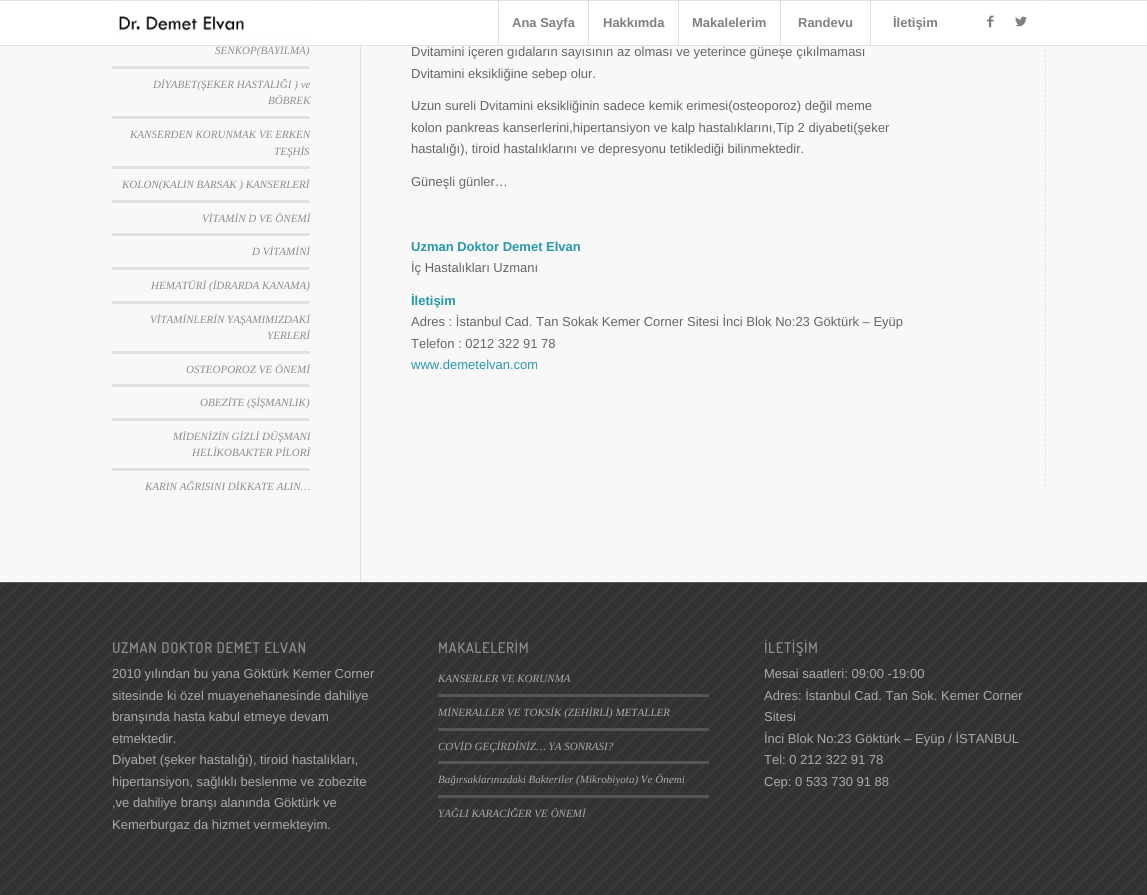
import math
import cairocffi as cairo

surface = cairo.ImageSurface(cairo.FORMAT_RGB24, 1147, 895)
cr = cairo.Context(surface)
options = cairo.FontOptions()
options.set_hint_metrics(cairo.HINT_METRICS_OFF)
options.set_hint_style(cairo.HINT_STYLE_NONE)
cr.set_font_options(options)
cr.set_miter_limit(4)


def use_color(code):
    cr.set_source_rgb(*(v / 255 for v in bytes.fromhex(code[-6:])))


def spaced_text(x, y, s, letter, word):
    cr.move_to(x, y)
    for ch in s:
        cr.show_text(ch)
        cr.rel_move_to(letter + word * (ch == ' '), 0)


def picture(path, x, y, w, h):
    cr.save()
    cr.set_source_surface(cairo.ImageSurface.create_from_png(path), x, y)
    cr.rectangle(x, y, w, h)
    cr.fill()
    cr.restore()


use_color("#f8f8f8")
cr.paint()
use_color("#e1e1e1")
cr.rectangle(360, 0, 1, 582)
cr.fill()
cr.rectangle(112, 1, 198, 1)
cr.fill()
cr.rectangle(112, 32, 198, 3)
cr.fill()
cr.new_path()
cr.move_to(1045.5, -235)
cr.line_to(1045.5, 487)
cr.set_line_width(1)
cr.set_dash([3, 1.99])
cr.stroke()
cr.set_source_rgba(1, 1, 1, 0.95)
cr.rectangle(0, 1, 1147, 44)
cr.fill()
use_color("#e1e1e1")
cr.rectangle(0, 0, 1147, 1)
cr.fill()
cr.rectangle(0, 45, 1147, 1)
cr.fill()
picture("img1.png", 119, 16, 125, 15)
cr.rectangle(498, 1, 1, 44)
cr.fill()
cr.select_font_face("Liberation Sans", cairo.FONT_SLANT_NORMAL, cairo.FONT_WEIGHT_BOLD)
cr.set_font_size(13)
use_color("#808080")
cr.move_to(512, 27)
cr.show_text("Ana Sayfa")
use_color("#e1e1e1")
cr.rectangle(588, 1, 1, 44)
cr.fill()
use_color("#808080")
cr.move_to(603, 27)
cr.show_text("Hakkımda")
use_color("#e1e1e1")
cr.rectangle(678, 1, 1, 44)
cr.fill()
use_color("#808080")
cr.move_to(692, 27)
cr.show_text("Makalelerim")
use_color("#e1e1e1")
cr.rectangle(780, 1, 1, 44)
cr.fill()
use_color("#808080")
cr.move_to(798, 27)
cr.show_text("Randevu")
use_color("#e1e1e1")
cr.rectangle(870, 1, 1, 44)
cr.fill()
use_color("#808080")
cr.move_to(893, 27)
cr.show_text("İletişim")
picture("img2.png", 987, 15, 7, 13)
picture("img3.png", 1015, 16, 12, 11)
cr.select_font_face("Liberation Serif", cairo.FONT_SLANT_ITALIC)
cr.set_font_size(11.05)
use_color("#8d8d8d")
cr.move_to(215, 54)
cr.show_text("SENKOP(BAYILMA)")
use_color("#e1e1e1")
cr.rectangle(112, 66, 198, 3)
cr.fill()
use_color("#8d8d8d")
cr.move_to(153, 88)
cr.show_text("DİYABET(ŞEKER HASTALIĞI ) ve")
cr.move_to(268, 104)
cr.show_text("BÖBREK")
use_color("#e1e1e1")
cr.rectangle(112, 116, 198, 3)
cr.fill()
use_color("#8d8d8d")
cr.move_to(130, 138)
cr.show_text("KANSERDEN KORUNMAK VE ERKEN")
cr.move_to(274, 155)
cr.show_text("TEŞHİS")
use_color("#e1e1e1")
cr.rectangle(112, 166, 198, 3)
cr.fill()
use_color("#8d8d8d")
cr.move_to(122, 188)
cr.show_text("KOLON(KALIN BARSAK ) KANSERLERİ")
use_color("#e1e1e1")
cr.rectangle(112, 200, 198, 3)
cr.fill()
use_color("#8d8d8d")
cr.move_to(202, 222)
cr.show_text("VİTAMİN D VE ÖNEMİ")
use_color("#e1e1e1")
cr.rectangle(112, 233, 198, 3)
cr.fill()
use_color("#8d8d8d")
cr.move_to(252, 255)
cr.show_text("D VİTAMİNİ")
use_color("#e1e1e1")
cr.rectangle(112, 267, 198, 3)
cr.fill()
use_color("#8d8d8d")
cr.move_to(151, 289)
cr.show_text("HEMATÜRİ (İDRARDA KANAMA)")
use_color("#e1e1e1")
cr.rectangle(112, 301, 198, 3)
cr.fill()
use_color("#8d8d8d")
cr.move_to(150, 323)
cr.show_text("VİTAMİNLERİN YAŞAMIMIZDAKİ")
cr.move_to(267, 339)
cr.show_text("YERLERİ")
use_color("#e1e1e1")
cr.rectangle(112, 351, 198, 3)
cr.fill()
use_color("#8d8d8d")
cr.move_to(186, 373)
cr.show_text("OSTEOPOROZ VE ÖNEMİ")
use_color("#e1e1e1")
cr.rectangle(112, 384, 198, 3)
cr.fill()
use_color("#8d8d8d")
cr.move_to(200, 406)
cr.show_text("OBEZİTE (ŞİŞMANLIK)")
use_color("#e1e1e1")
cr.rectangle(112, 418, 198, 3)
cr.fill()
use_color("#8d8d8d")
cr.move_to(173, 440)
cr.show_text("MİDENİZİN GİZLİ DÜŞMANI")
cr.move_to(192, 456)
cr.show_text("HELİKOBAKTER PİLORİ")
use_color("#e1e1e1")
cr.rectangle(112, 468, 198, 3)
cr.fill()
use_color("#8d8d8d")
cr.move_to(145, 490)
cr.show_text("KARIN AĞRISINI DİKKATE ALIN…")
cr.select_font_face("Liberation Sans")
cr.set_font_size(13)
use_color("#666666")
cr.move_to(411, 56)
cr.show_text("Dvitamini içeren gıdaların sayısının az olması ve yeterince güneşe çıkılmaması")
cr.move_to(411, 78)
cr.show_text("Dvitamini eksikliğine sebep olur.")
cr.move_to(411, 110)
cr.show_text("Uzun sureli Dvitamini eksikliğinin sadece kemik erimesi(osteoporoz) değil meme")
cr.move_to(411, 132)
cr.show_text("kolon pankreas kanserlerini,hipertansiyon ve kalp hastalıklarını,Tip 2 diyabeti(şeker")
cr.move_to(411, 153)
cr.show_text("hastalığı), tiroid hastalıklarını ve depresyonu tetiklediği bilinmektedir.")
cr.move_to(411, 186)
cr.show_text("Güneşli günler…")
cr.select_font_face("Liberation Sans", cairo.FONT_SLANT_NORMAL, cairo.FONT_WEIGHT_BOLD)
use_color("#2997ab")
cr.move_to(411, 251)
cr.show_text("Uzman Doktor Demet Elvan")
cr.select_font_face("Liberation Sans")
use_color("#666666")
cr.move_to(411, 272)
cr.show_text("İç Hastalıkları Uzmanı")
cr.select_font_face("Liberation Sans", cairo.FONT_SLANT_NORMAL, cairo.FONT_WEIGHT_BOLD)
use_color("#2997ab")
cr.move_to(411, 305)
cr.show_text("İletişim")
cr.select_font_face("Liberation Sans")
use_color("#666666")
cr.move_to(411, 326)
cr.show_text("Adres : İstanbul Cad. Tan Sokak Kemer Corner Sitesi İnci Blok No:23 Göktürk – Eyüp")
cr.move_to(411, 348)
cr.show_text("Telefon : 0212 322 91 78")
use_color("#2997ab")
cr.move_to(411, 369)
cr.show_text("www.demetelvan.com")
use_color("#333333")
cr.rectangle(0, 583, 1147, 312)
cr.fill()
picture("img4.png", 0, 583, 1147, 312)
use_color("#555555")
cr.rectangle(0, 582, 1147, 1)
cr.fill()
cr.select_font_face("Dosis", cairo.FONT_SLANT_NORMAL, cairo.FONT_WEIGHT_BOLD)
cr.set_font_size(14.25)
use_color("#8d8d8d")
spaced_text(112, 653, "UZMAN DOKTOR DEMET ELVAN", 1, 0)
cr.select_font_face("Liberation Sans")
cr.set_font_size(13)
use_color("#aaaaaa")
cr.move_to(112, 678)
cr.show_text("2010 yılından bu yana Göktürk Kemer Corner")
cr.move_to(112, 700)
cr.show_text("sitesinde ki özel muayenehanesinde dahiliye")
cr.move_to(112, 721)
cr.show_text("branşında hasta kabul etmeye devam")
cr.move_to(112, 743)
cr.show_text("etmektedir.")
cr.move_to(112, 764)
cr.show_text("Diyabet (şeker hastalığı), tiroid hastalıkları,")
cr.move_to(112, 786)
cr.show_text("hipertansiyon, sağlıklı beslenme ve zobezite")
cr.move_to(112, 807)
cr.show_text(",ve dahiliye branşı alanında Göktürk ve")
cr.move_to(112, 829)
cr.show_text("Kemerburgaz da hizmet vermekteyim.")
cr.select_font_face("Dosis", cairo.FONT_SLANT_NORMAL, cairo.FONT_WEIGHT_BOLD)
cr.set_font_size(14.25)
use_color("#8d8d8d")
spaced_text(438, 653, "MAKALELERİM", 1, 0)
cr.select_font_face("Liberation Serif", cairo.FONT_SLANT_ITALIC)
cr.set_font_size(11.05)
use_color("#aaaaaa")
cr.move_to(438, 682)
cr.show_text("KANSERLER VE KORUNMA")
use_color("#555555")
cr.rectangle(438, 694, 271, 3)
cr.fill()
use_color("#aaaaaa")
cr.move_to(438, 716)
cr.show_text("MİNERALLER VE TOKSİK (ZEHİRLİ) METALLER")
use_color("#555555")
cr.rectangle(438, 728, 271, 3)
cr.fill()
use_color("#aaaaaa")
cr.move_to(438, 750)
cr.show_text("COVİD GEÇİRDİNİZ… YA SONRASI?")
use_color("#555555")
cr.rectangle(438, 761, 271, 3)
cr.fill()
use_color("#aaaaaa")
cr.move_to(438, 783)
cr.show_text("Bağırsaklarınızdaki Bakteriler (Mikrobiyota) Ve Önemi")
use_color("#555555")
cr.rectangle(438, 795, 271, 3)
cr.fill()
use_color("#aaaaaa")
cr.move_to(438, 817)
cr.show_text("YAĞLI KARACİĞER VE ÖNEMİ")
cr.select_font_face("Dosis", cairo.FONT_SLANT_NORMAL, cairo.FONT_WEIGHT_BOLD)
cr.set_font_size(14.25)
use_color("#8d8d8d")
spaced_text(764, 653, "İLETİŞİM", 1, 0)
cr.select_font_face("Liberation Sans")
cr.set_font_size(13)
use_color("#aaaaaa")
cr.move_to(764, 678)
cr.show_text("Mesai saatleri: 09:00 -19:00")
cr.move_to(764, 700)
cr.show_text("Adres: İstanbul Cad. Tan Sok. Kemer Corner")
cr.move_to(764, 721)
cr.show_text("Sitesi")
cr.move_to(764, 743)
cr.show_text("İnci Blok No:23 Göktürk – Eyüp / İSTANBUL")
cr.move_to(764, 764)
cr.show_text("Tel: 0 212 322 91 78")
cr.move_to(764, 786)
cr.show_text("Cep: 0 533 730 91 88")
surface.write_to_png("result.png")
